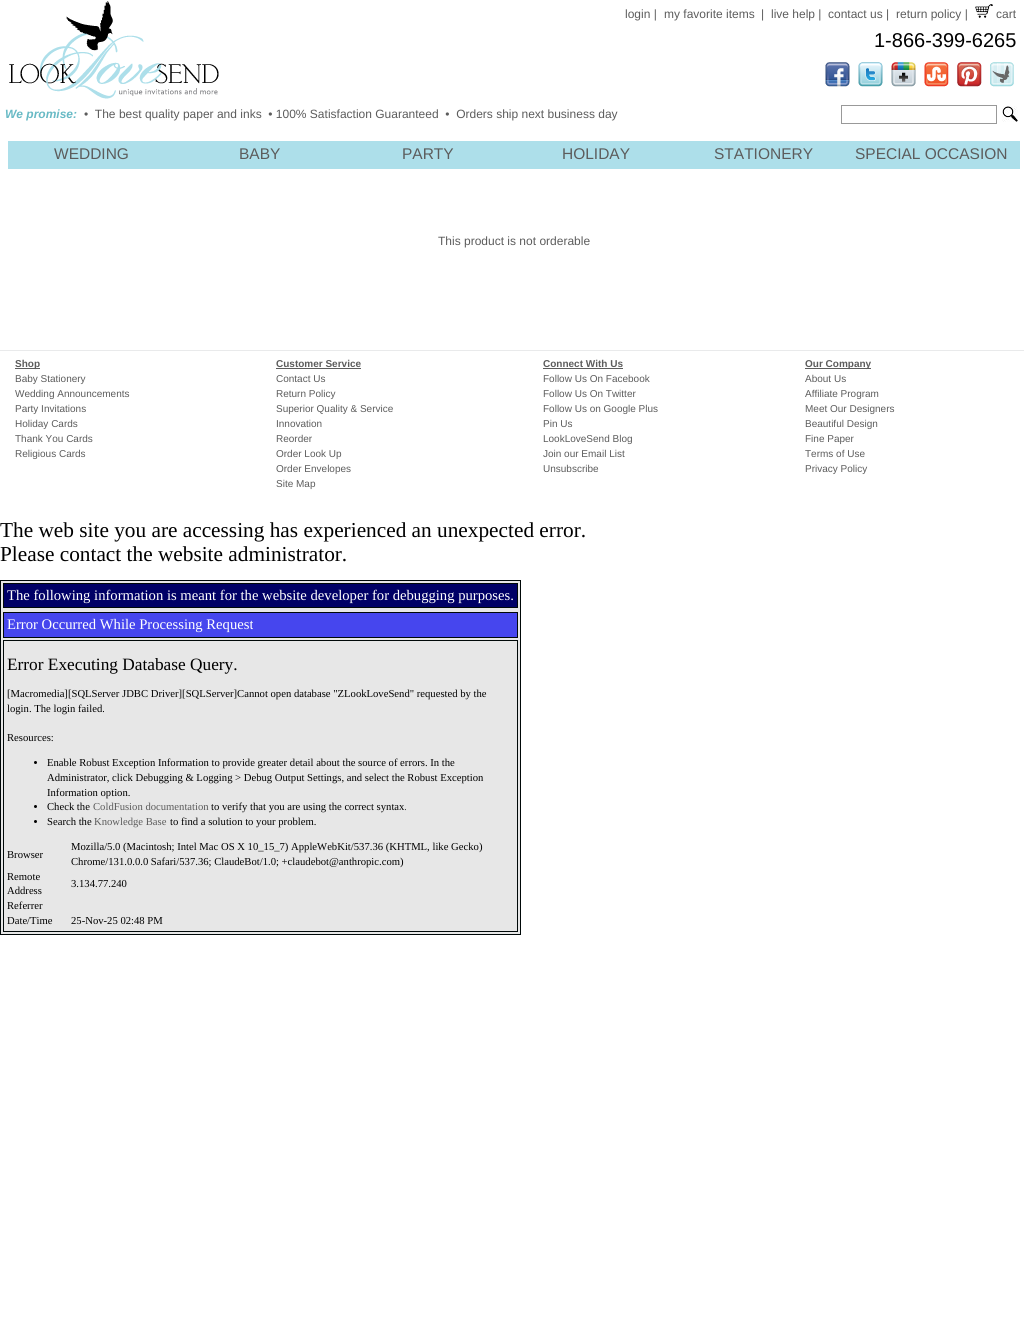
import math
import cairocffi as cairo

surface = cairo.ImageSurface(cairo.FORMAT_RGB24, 1024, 1330)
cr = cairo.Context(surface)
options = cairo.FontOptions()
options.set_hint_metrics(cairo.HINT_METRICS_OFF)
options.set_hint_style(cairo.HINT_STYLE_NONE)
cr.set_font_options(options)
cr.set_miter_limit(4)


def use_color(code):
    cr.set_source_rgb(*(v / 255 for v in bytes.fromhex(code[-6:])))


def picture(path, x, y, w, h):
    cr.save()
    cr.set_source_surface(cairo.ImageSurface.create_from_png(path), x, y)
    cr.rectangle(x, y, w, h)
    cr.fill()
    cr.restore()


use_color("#ffffff")
cr.paint()
picture("img1.png", 9, 1, 210, 98)
cr.select_font_face("Liberation Sans")
cr.set_font_size(12)
use_color("#5c5c5c")
cr.move_to(625, 18)
cr.show_text("login |")
cr.move_to(664, 18)
cr.show_text("my favorite items")
cr.move_to(761, 18)
cr.show_text("|")
cr.move_to(771, 18)
cr.show_text("live help |")
cr.move_to(828, 18)
cr.show_text("contact us |")
cr.move_to(896, 18)
cr.show_text("return policy |")
picture("img2.png", 975, 4, 18, 14)
cr.move_to(996, 18)
cr.show_text("cart")
cr.set_font_size(20)
use_color("#000000")
cr.move_to(874, 47)
cr.show_text("1-866-399-6265")
picture("img3.png", 825, 62, 189, 25)
cr.select_font_face("Liberation Sans", cairo.FONT_SLANT_ITALIC, cairo.FONT_WEIGHT_BOLD)
cr.set_font_size(12)
use_color("#68bac5")
cr.move_to(5, 118)
cr.show_text("We promise:")
cr.select_font_face("Liberation Sans")
use_color("#5c5c5c")
cr.move_to(84, 118)
cr.show_text("•  The best quality paper and inks  • 100% Satisfaction Guaranteed  •  Orders ship next business day")
cr.rectangle(841.5, 105.5, 155, 18)
use_color("#999999")
cr.set_line_width(1)
cr.stroke()
picture("img4.png", 1002, 106, 16, 16)
use_color("#addfea")
cr.rectangle(8, 141, 1012, 28)
cr.fill()
cr.set_font_size(15.5)
use_color("#5c5c5c")
cr.move_to(54, 159)
cr.show_text("WEDDING")
cr.move_to(239, 159)
cr.show_text("BABY")
cr.move_to(402, 159)
cr.show_text("PARTY")
cr.move_to(562, 159)
cr.show_text("HOLIDAY")
cr.move_to(714, 159)
cr.show_text("STATIONERY")
cr.move_to(855, 159)
cr.show_text("SPECIAL OCCASION")
cr.set_font_size(12)
cr.move_to(438, 245)
cr.show_text("This product is not orderable")
use_color("#e9eaeb")
cr.rectangle(0, 350, 1024, 1)
cr.fill()
use_color("#5c5c5c")
cr.rectangle(15, 368, 25, 1)
cr.fill()
cr.select_font_face("Liberation Sans", cairo.FONT_SLANT_NORMAL, cairo.FONT_WEIGHT_BOLD)
cr.set_font_size(10)
cr.move_to(15, 367)
cr.show_text("Shop")
cr.select_font_face("Liberation Sans")
cr.move_to(15, 382)
cr.show_text("Baby Stationery")
cr.move_to(15, 397)
cr.show_text("Wedding Announcements")
cr.move_to(15, 412)
cr.show_text("Party Invitations")
cr.move_to(15, 427)
cr.show_text("Holiday Cards")
cr.move_to(15, 442)
cr.show_text("Thank You Cards")
cr.move_to(15, 457)
cr.show_text("Religious Cards")
cr.select_font_face("Liberation Sans", cairo.FONT_SLANT_NORMAL, cairo.FONT_WEIGHT_BOLD)
cr.move_to(276, 367)
cr.show_text("Customer Service")
cr.rectangle(276, 368, 85, 1)
cr.fill()
cr.select_font_face("Liberation Sans")
cr.move_to(276, 382)
cr.show_text("Contact Us")
cr.move_to(276, 397)
cr.show_text("Return Policy")
cr.move_to(276, 412)
cr.show_text("Superior Quality & Service")
cr.move_to(276, 427)
cr.show_text("Innovation")
cr.move_to(276, 442)
cr.show_text("Reorder")
cr.move_to(276, 457)
cr.show_text("Order Look Up")
cr.move_to(276, 472)
cr.show_text("Order Envelopes")
cr.move_to(276, 487)
cr.show_text("Site Map")
cr.select_font_face("Liberation Sans", cairo.FONT_SLANT_NORMAL, cairo.FONT_WEIGHT_BOLD)
cr.move_to(543, 367)
cr.show_text("Connect With Us")
cr.rectangle(543, 368, 80, 1)
cr.fill()
cr.select_font_face("Liberation Sans")
cr.move_to(543, 382)
cr.show_text("Follow Us On Facebook")
cr.move_to(543, 397)
cr.show_text("Follow Us On Twitter")
cr.move_to(543, 412)
cr.show_text("Follow Us on Google Plus")
cr.move_to(543, 427)
cr.show_text("Pin Us")
cr.move_to(543, 442)
cr.show_text("LookLoveSend Blog")
cr.move_to(543, 457)
cr.show_text("Join our Email List")
cr.move_to(543, 472)
cr.show_text("Unsubscribe")
cr.rectangle(805, 368, 66, 1)
cr.fill()
cr.select_font_face("Liberation Sans", cairo.FONT_SLANT_NORMAL, cairo.FONT_WEIGHT_BOLD)
cr.move_to(805, 367)
cr.show_text("Our Company")
cr.select_font_face("Liberation Sans")
cr.move_to(805, 382)
cr.show_text("About Us")
cr.move_to(805, 397)
cr.show_text("Affiliate Program")
cr.move_to(805, 412)
cr.show_text("Meet Our Designers")
cr.move_to(805, 427)
cr.show_text("Beautiful Design")
cr.move_to(805, 442)
cr.show_text("Fine Paper")
cr.move_to(805, 457)
cr.show_text("Terms of Use")
cr.move_to(805, 472)
cr.show_text("Privacy Policy")
cr.select_font_face("Liberation Serif")
cr.set_font_size(21.3)
use_color("#000000")
cr.move_to(0, 537)
cr.show_text("The web site you are accessing has experienced an unexpected error.")
cr.move_to(0, 561)
cr.show_text("Please contact the website administrator.")
use_color("#e7e7e7")
cr.rectangle(0.5, 580.5, 520, 354)
cr.fill_preserve()
use_color("#000808")
cr.stroke()
use_color("#000066")
cr.rectangle(3.5, 583.5, 514, 24)
cr.fill_preserve()
use_color("#000808")
cr.stroke()
cr.set_font_size(14.65)
use_color("#ffffff")
cr.move_to(7, 600)
cr.show_text("The following information is meant for the website developer for debugging purposes.")
use_color("#4646ee")
cr.rectangle(3.5, 612.5, 514, 25)
cr.fill_preserve()
use_color("#000808")
cr.stroke()
use_color("#ffffff")
cr.move_to(7, 629)
cr.show_text("Error Occurred While Processing Request")
cr.rectangle(3.5, 640.5, 514, 291)
use_color("#000808")
cr.stroke()
cr.set_font_size(17.3)
use_color("#000000")
cr.move_to(7, 670)
cr.show_text("Error Executing Database Query.")
cr.set_font_size(10.65)
cr.move_to(7, 697)
cr.show_text("[Macromedia][SQLServer JDBC Driver][SQLServer]Cannot open database \"ZLookLoveSend\" requested by the")
cr.move_to(7, 712)
cr.show_text("login. The login failed.")
cr.move_to(7, 741)
cr.show_text("Resources:")
cr.new_path()
cr.arc(35.5, 762.5, 1.5, 0, 2 * math.pi)
cr.fill()
cr.move_to(47, 766)
cr.show_text("Enable Robust Exception Information to provide greater detail about the source of errors. In the")
cr.move_to(47, 781)
cr.show_text("Administrator, click Debugging & Logging > Debug Output Settings, and select the Robust Exception")
cr.move_to(47, 796)
cr.show_text("Information option.")
cr.new_path()
cr.arc(35.5, 806.5, 1.5, 0, 2 * math.pi)
cr.fill()
cr.move_to(47, 810)
cr.show_text("Check the")
use_color("#5c5c5c")
cr.move_to(93, 810)
cr.show_text("ColdFusion documentation")
use_color("#000000")
cr.move_to(211, 810)
cr.show_text("to verify that you are using the correct syntax.")
cr.new_path()
cr.arc(35.5, 821.5, 1.5, 0, 2 * math.pi)
cr.fill()
cr.move_to(47, 825)
cr.show_text("Search the")
use_color("#5c5c5c")
cr.move_to(94, 825)
cr.show_text("Knowledge Base")
use_color("#000000")
cr.move_to(170, 825)
cr.show_text("to find a solution to your problem.")
cr.move_to(7, 858)
cr.show_text("Browser")
cr.move_to(71, 850)
cr.show_text("Mozilla/5.0 (Macintosh; Intel Mac OS X 10_15_7) AppleWebKit/537.36 (KHTML, like Gecko)")
cr.move_to(71, 865)
cr.show_text("Chrome/131.0.0.0 Safari/537.36; ClaudeBot/1.0; +claudebot@anthropic.com)")
cr.move_to(7, 880)
cr.show_text("Remote")
cr.move_to(7, 894)
cr.show_text("Address")
cr.move_to(71, 887)
cr.show_text("3.134.77.240")
cr.move_to(7, 909)
cr.show_text("Referrer")
cr.move_to(7, 924)
cr.show_text("Date/Time")
cr.move_to(71, 924)
cr.show_text("25-Nov-25 02:48 PM")
surface.write_to_png("result.png")
